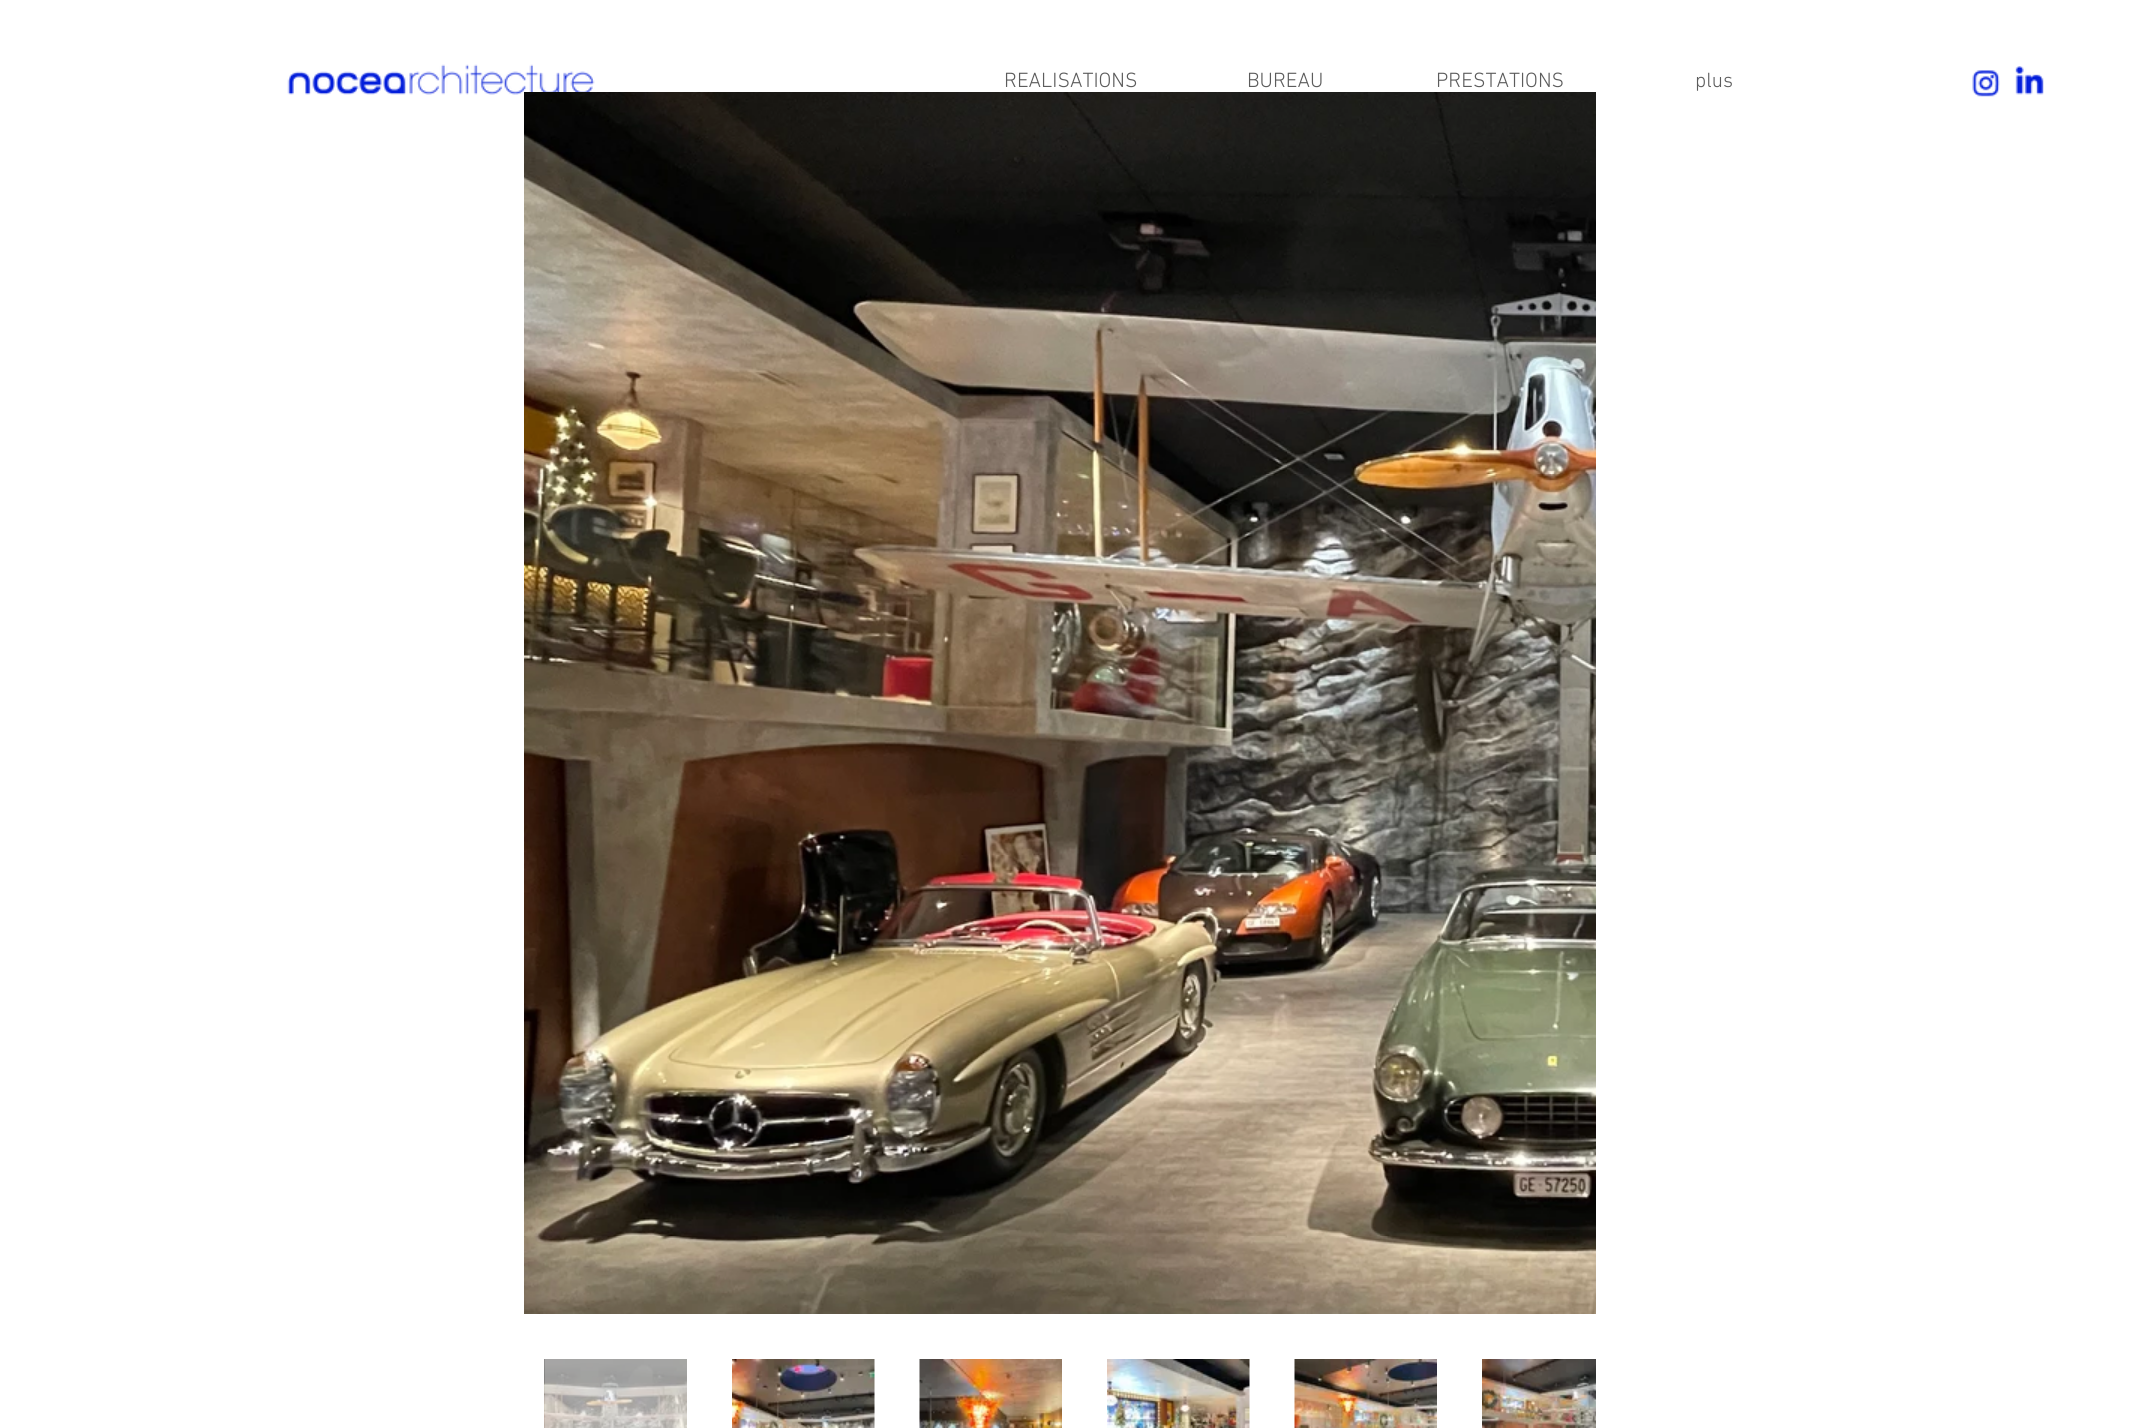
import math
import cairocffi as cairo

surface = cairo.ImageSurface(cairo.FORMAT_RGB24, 2148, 1428)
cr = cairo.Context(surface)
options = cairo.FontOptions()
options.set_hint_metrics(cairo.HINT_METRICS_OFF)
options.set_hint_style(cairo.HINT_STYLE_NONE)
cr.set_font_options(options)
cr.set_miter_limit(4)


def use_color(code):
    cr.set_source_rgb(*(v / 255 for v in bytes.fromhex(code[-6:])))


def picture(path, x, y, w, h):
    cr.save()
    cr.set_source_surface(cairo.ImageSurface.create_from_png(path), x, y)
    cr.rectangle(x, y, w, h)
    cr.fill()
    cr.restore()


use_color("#ffffff")
cr.paint()
picture("img1.png", 287, 64, 308, 31)
cr.select_font_face("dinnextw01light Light")
cr.set_font_size(21)
use_color("#5c5c5c")
cr.move_to(1004, 87)
cr.show_text("REALISATIONS")
cr.move_to(1247, 87)
cr.show_text("BUREAU")
cr.move_to(1436, 87)
cr.show_text("PRESTATIONS")
cr.move_to(1695, 87)
cr.show_text("plus")
picture("img2.png", 1972, 70, 28, 27)
picture("img3.png", 2015, 66, 29, 29)
picture("img4.png", 524, 92, 1072, 1222)
picture("img5.png", 544, 1359, 143, 69)
picture("img6.png", 732, 1359, 143, 69)
picture("img7.png", 919, 1359, 143, 69)
picture("img8.png", 1107, 1359, 143, 69)
picture("img9.png", 1294, 1359, 143, 69)
picture("img10.png", 1482, 1359, 114, 69)
surface.write_to_png("result.png")
